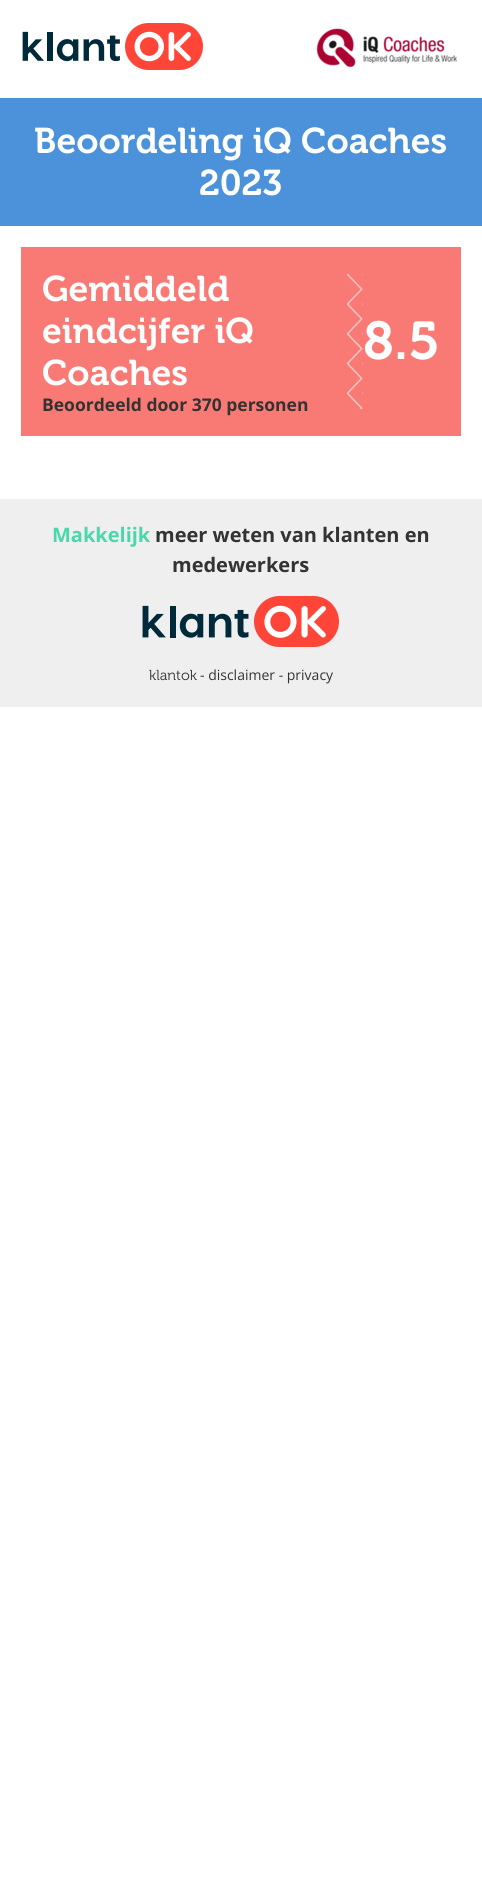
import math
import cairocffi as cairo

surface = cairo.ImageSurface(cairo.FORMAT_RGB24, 482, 1885)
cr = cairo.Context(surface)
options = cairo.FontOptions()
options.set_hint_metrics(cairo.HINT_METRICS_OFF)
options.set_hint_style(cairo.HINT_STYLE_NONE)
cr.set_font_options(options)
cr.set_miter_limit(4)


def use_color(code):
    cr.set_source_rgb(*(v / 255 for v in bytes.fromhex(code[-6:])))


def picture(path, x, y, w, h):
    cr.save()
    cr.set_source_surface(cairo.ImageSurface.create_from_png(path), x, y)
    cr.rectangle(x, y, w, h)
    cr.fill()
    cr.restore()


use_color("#ffffff")
cr.paint()
picture("img1.png", 22, 23, 181, 47)
picture("img2.png", 316, 28, 141, 40)
use_color("#4b92db")
cr.rectangle(0.5, 98.5, 481, 127)
cr.fill_preserve()
cr.set_line_width(1)
cr.stroke()
cr.select_font_face("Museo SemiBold")
cr.set_font_size(35)
use_color("#ffffff")
cr.move_to(34, 153)
cr.show_text("Beoordeling iQ Coaches")
cr.move_to(199, 195)
cr.show_text("2023")
use_color("#f97a75")
cr.rectangle(21, 247, 440, 189)
cr.fill()
use_color("#ffffff")
cr.move_to(42, 301)
cr.show_text("Gemiddeld")
cr.move_to(42, 343)
cr.show_text("eindcijfer iQ")
cr.move_to(42, 385)
cr.show_text("Coaches")
cr.select_font_face("Open Sans", cairo.FONT_SLANT_NORMAL, cairo.FONT_WEIGHT_BOLD)
cr.set_font_size(17.5)
use_color("#333333")
cr.move_to(42, 411)
cr.show_text("Beoordeeld door 370 personen")
picture("img3.png", 347, 274, 16, 135)
cr.select_font_face("Museo SemiBold")
cr.set_font_size(52)
use_color("#ffffff")
cr.move_to(363, 359)
cr.show_text("8.5")
use_color("#efefef")
cr.rectangle(0, 499, 482, 208)
cr.fill()
cr.select_font_face("Open Sans", cairo.FONT_SLANT_NORMAL, cairo.FONT_WEIGHT_BOLD)
cr.set_font_size(20)
use_color("#49d8ab")
cr.move_to(52, 542)
cr.show_text("Makkelijk")
use_color("#333333")
cr.move_to(155, 542)
cr.show_text("meer weten van klanten en")
cr.move_to(172, 572)
cr.show_text("medewerkers")
picture("img4.png", 142, 596, 197, 51)
cr.select_font_face("Museo Light")
cr.set_font_size(14)
cr.move_to(149, 680)
cr.show_text("klantok")
cr.select_font_face("Open Sans")
cr.move_to(200, 680)
cr.show_text("- disclaimer - privacy")
surface.write_to_png("result.png")
